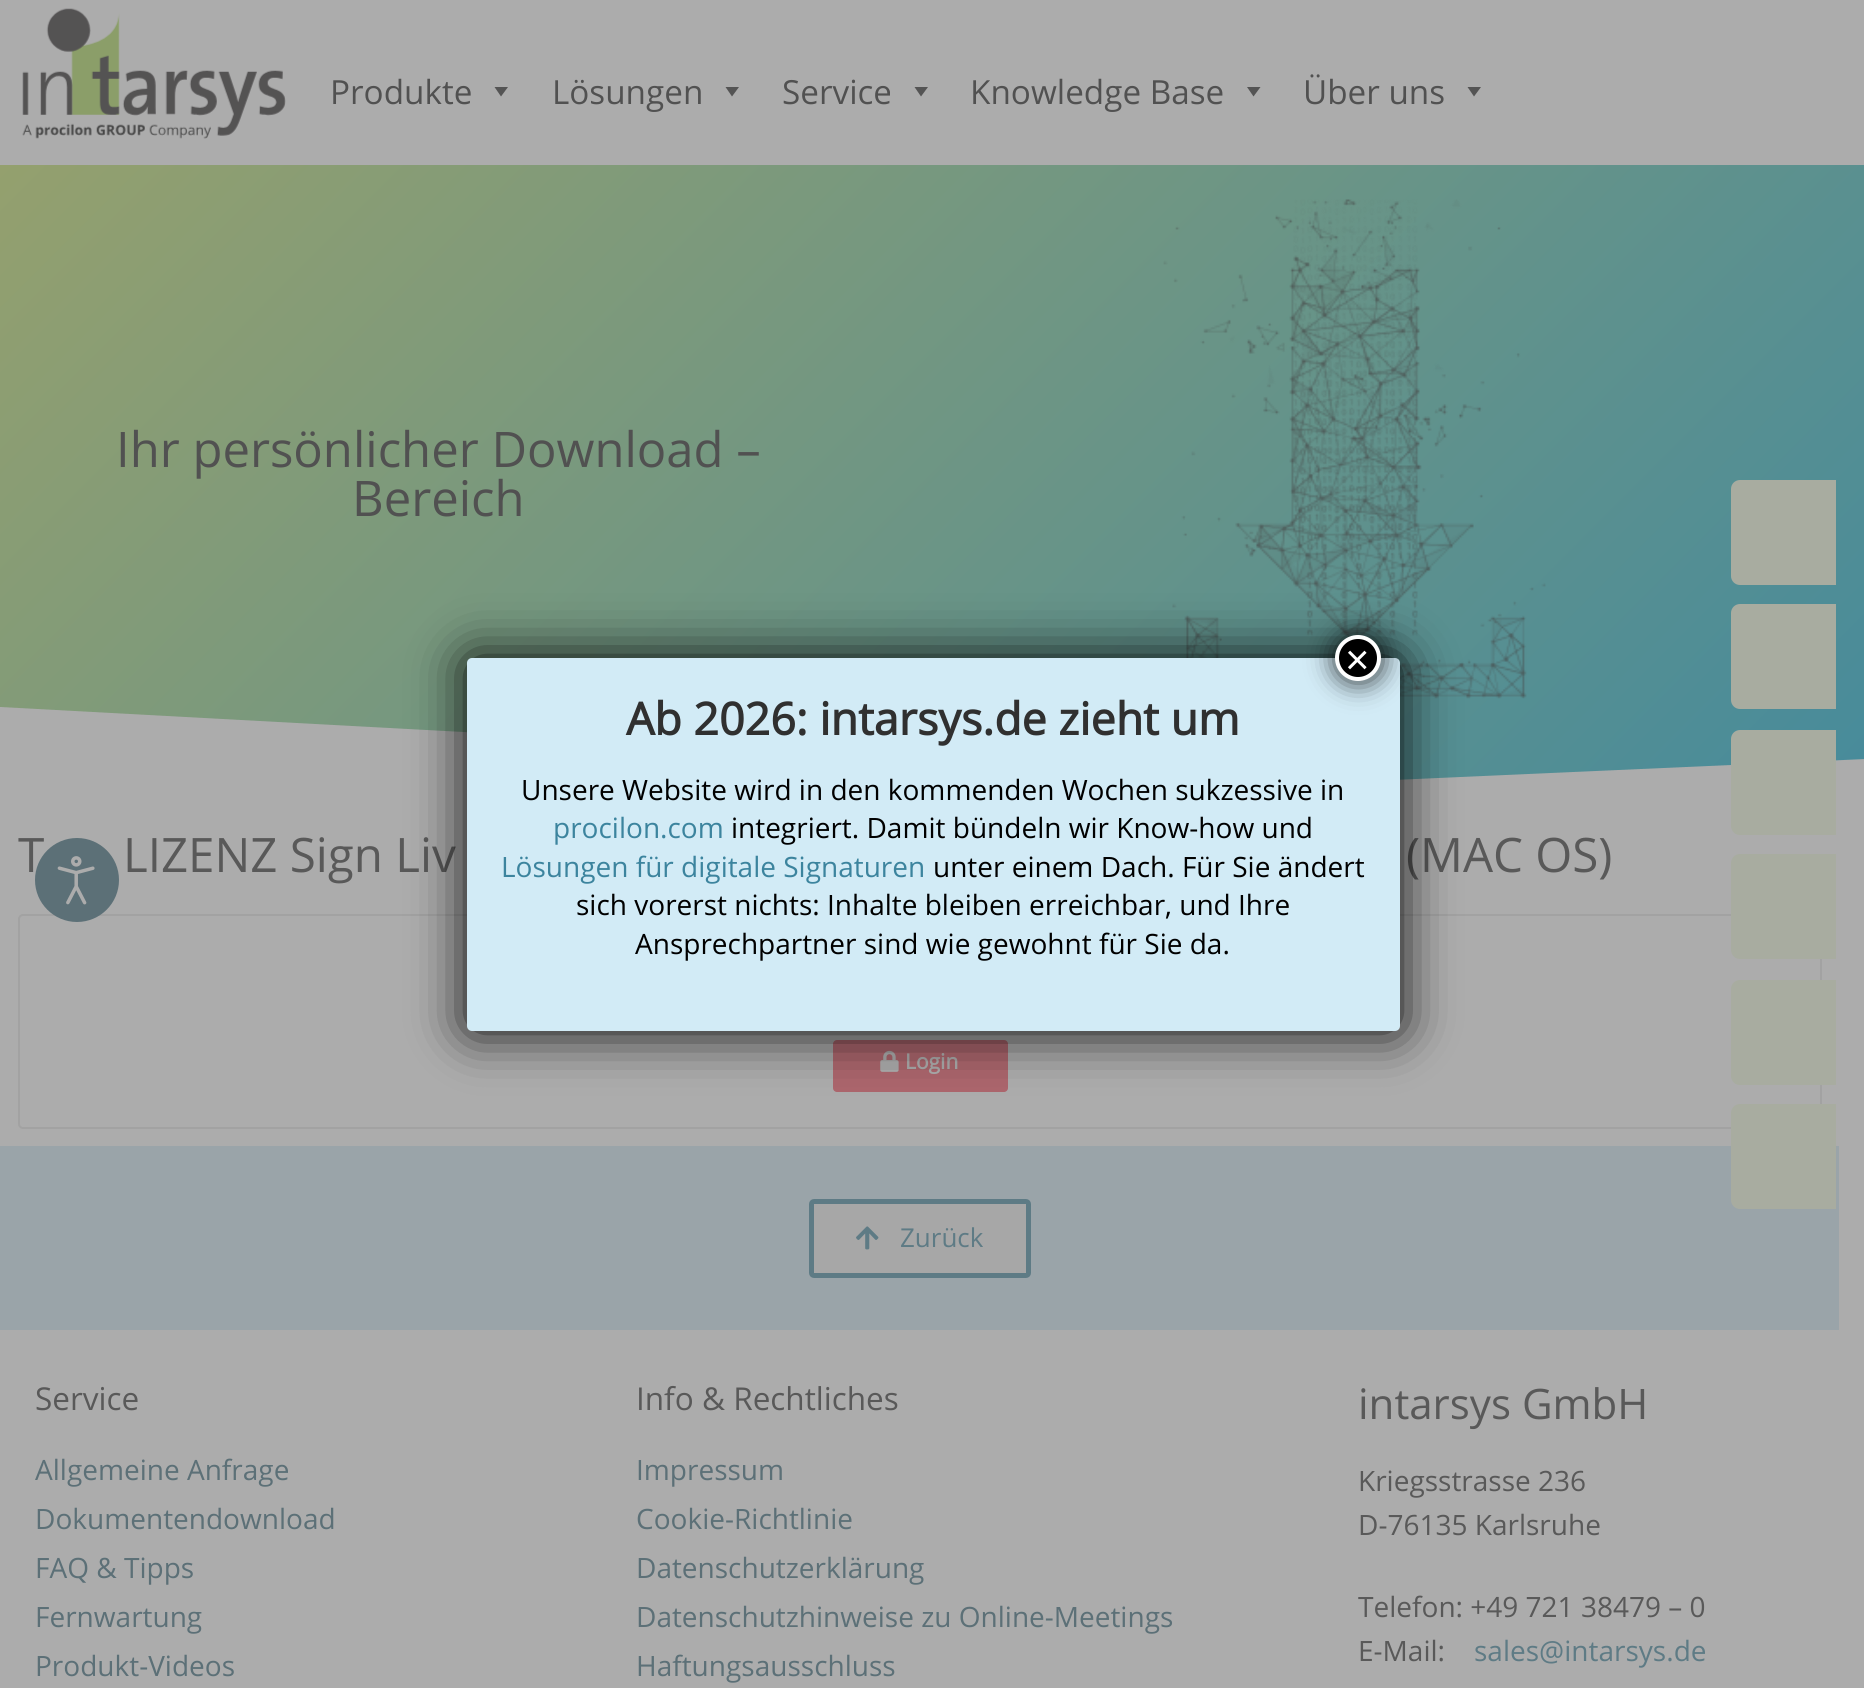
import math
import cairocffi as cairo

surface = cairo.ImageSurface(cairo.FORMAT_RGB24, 1864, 1688)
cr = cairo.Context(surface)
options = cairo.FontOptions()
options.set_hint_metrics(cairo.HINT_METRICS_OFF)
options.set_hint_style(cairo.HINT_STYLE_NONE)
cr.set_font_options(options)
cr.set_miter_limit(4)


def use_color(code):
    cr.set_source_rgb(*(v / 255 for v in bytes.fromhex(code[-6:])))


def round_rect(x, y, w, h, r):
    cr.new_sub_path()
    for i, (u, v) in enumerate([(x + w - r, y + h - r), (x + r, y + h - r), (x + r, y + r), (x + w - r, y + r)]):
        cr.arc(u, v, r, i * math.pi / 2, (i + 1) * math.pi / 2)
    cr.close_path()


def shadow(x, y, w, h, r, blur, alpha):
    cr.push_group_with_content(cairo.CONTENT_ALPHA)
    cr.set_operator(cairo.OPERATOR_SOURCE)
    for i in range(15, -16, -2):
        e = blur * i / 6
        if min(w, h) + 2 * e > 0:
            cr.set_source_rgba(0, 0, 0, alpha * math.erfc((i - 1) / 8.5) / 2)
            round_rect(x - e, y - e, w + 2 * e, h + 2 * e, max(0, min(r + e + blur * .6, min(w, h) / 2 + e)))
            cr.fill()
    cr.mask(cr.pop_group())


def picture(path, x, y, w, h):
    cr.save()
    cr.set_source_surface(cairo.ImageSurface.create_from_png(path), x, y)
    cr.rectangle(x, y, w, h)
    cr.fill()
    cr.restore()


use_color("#acacac")
cr.paint()
picture("img1.png", 22, 8, 264, 131)
cr.select_font_face("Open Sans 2")
cr.set_font_size(33.25)
use_color("#515151")
cr.move_to(330, 104)
cr.show_text("Produkte")
use_color("#545454")
cr.new_path()
cr.move_to(508, 87)
cr.line_to(501, 96.5)
cr.line_to(494.5, 87)
cr.close_path()
cr.fill()
use_color("#515151")
cr.move_to(552, 104)
cr.show_text("Lösungen")
use_color("#545454")
cr.new_path()
cr.move_to(739, 87)
cr.line_to(732, 96.5)
cr.line_to(725.5, 87)
cr.close_path()
cr.fill()
use_color("#515151")
cr.move_to(782, 104)
cr.show_text("Service")
use_color("#545454")
cr.new_path()
cr.move_to(928, 87)
cr.line_to(921, 96.5)
cr.line_to(914.5, 87)
cr.close_path()
cr.fill()
use_color("#515151")
cr.move_to(970, 104)
cr.show_text("Knowledge Base")
use_color("#545454")
cr.new_path()
cr.move_to(1260.5, 87)
cr.line_to(1253.5, 96.5)
cr.line_to(1247, 87)
cr.close_path()
cr.fill()
use_color("#515151")
cr.move_to(1303, 104)
cr.show_text("Über uns")
use_color("#545454")
cr.new_path()
cr.move_to(1481, 87)
cr.line_to(1474, 96.5)
cr.line_to(1467.5, 87)
cr.close_path()
cr.fill()
gradient = cairo.LinearGradient(309, -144, 1557, 1103)
gradient.add_color_stop_rgba(0, 0.58, 0.627, 0.431, 1)
gradient.add_color_stop_rgba(1, 0.278, 0.545, 0.608, 1)
cr.set_source(gradient)
cr.rectangle(0, 165, 1864, 615)
cr.fill()
cr.select_font_face("Open Sans")
cr.set_font_size(49)
use_color("#515151")
cr.move_to(116, 467)
cr.show_text("Ihr persönlicher Download –")
cr.move_to(352, 516)
cr.show_text("Bereich")
picture("img2.png", 1163, 199, 383, 500)
cr.save()
cr.rectangle(0, 707, 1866, 88)
cr.clip()
use_color("#acacac")
cr.new_path()
cr.move_to(0, 707)
cr.line_to(1370, 781)
cr.line_to(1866, 759)
cr.line_to(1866, 796)
cr.line_to(0, 796)
cr.close_path()
cr.fill()
cr.restore()
cr.select_font_face("Open Sans 2")
cr.set_font_size(47.5)
use_color("#595959")
cr.move_to(18, 872)
cr.show_text("T")
cr.move_to(123, 872)
cr.show_text("LIZENZ Sign Liv")
cr.move_to(1406, 872)
cr.show_text("(MAC OS)")
round_rect(19, 915, 1802, 213, 4)
use_color("#a2a2a2")
cr.stroke()
use_color("#ac666d")
round_rect(833, 1040, 175, 52, 4)
cr.fill()
picture("img3.png", 880, 1050, 19, 22)
cr.select_font_face("Open Sans", cairo.FONT_SLANT_NORMAL, cairo.FONT_WEIGHT_BOLD)
cr.set_font_size(21)
use_color("#acacac")
cr.move_to(905, 1069)
cr.show_text("Login")
use_color("#9aa4a9")
cr.rectangle(0, 1146, 1839, 184)
cr.fill()
use_color("#a7a7a7")
round_rect(811.5, 1201.5, 217, 74, 2.5)
cr.fill_preserve()
use_color("#5e7b85")
cr.set_line_width(5)
cr.stroke()
picture("img4.png", 856, 1226, 23, 24)
cr.select_font_face("Open Sans 2")
cr.set_font_size(26)
cr.move_to(900, 1247)
cr.show_text("Zurück")
use_color("#a8aca0")
cr.new_path()
cr.move_to(1740, 480)
cr.line_to(1836, 480)
cr.line_to(1836, 585)
cr.line_to(1740, 585)
cr.curve_to(1735, 585, 1731, 581, 1731, 576)
cr.line_to(1731, 489)
cr.curve_to(1731, 484, 1735, 480, 1740, 480)
cr.close_path()
cr.fill()
cr.new_path()
cr.move_to(1740, 604)
cr.line_to(1836, 604)
cr.line_to(1836, 709)
cr.line_to(1740, 709)
cr.curve_to(1735, 709, 1731, 705, 1731, 700)
cr.line_to(1731, 613)
cr.curve_to(1731, 608, 1735, 604, 1740, 604)
cr.close_path()
cr.fill()
cr.new_path()
cr.move_to(1740, 730)
cr.line_to(1836, 730)
cr.line_to(1836, 835)
cr.line_to(1740, 835)
cr.curve_to(1735, 835, 1731, 831, 1731, 826)
cr.line_to(1731, 739)
cr.curve_to(1731, 734, 1735, 730, 1740, 730)
cr.close_path()
cr.fill()
cr.new_path()
cr.move_to(1740, 854)
cr.line_to(1836, 854)
cr.line_to(1836, 959)
cr.line_to(1740, 959)
cr.curve_to(1735, 959, 1731, 955, 1731, 950)
cr.line_to(1731, 863)
cr.curve_to(1731, 858, 1735, 854, 1740, 854)
cr.close_path()
cr.fill()
cr.new_path()
cr.move_to(1740, 980)
cr.line_to(1836, 980)
cr.line_to(1836, 1085)
cr.line_to(1740, 1085)
cr.curve_to(1735, 1085, 1731, 1081, 1731, 1076)
cr.line_to(1731, 989)
cr.curve_to(1731, 984, 1735, 980, 1740, 980)
cr.close_path()
cr.fill()
cr.new_path()
cr.move_to(1740, 1104)
cr.line_to(1836, 1104)
cr.line_to(1836, 1209)
cr.line_to(1740, 1209)
cr.curve_to(1735, 1209, 1731, 1205, 1731, 1200)
cr.line_to(1731, 1113)
cr.curve_to(1731, 1108, 1735, 1104, 1740, 1104)
cr.close_path()
cr.fill()
use_color("#5c7077")
cr.arc(77, 880, 42, 0, 2 * math.pi)
cr.fill()
picture("img5.png", 57, 856, 38, 49)
use_color("#020202")
shadow(467, 658, 933, 373, 5, 26, 1)
use_color("#d2ebf6")
round_rect(467, 658, 933, 373, 5)
cr.fill()
use_color("#020202")
shadow(1334, 634, 49, 49, 24.5, 13, 0.75)
use_color("#000000")
cr.arc(1358, 658, 21, 0, 2 * math.pi)
cr.fill_preserve()
use_color("#ffffff")
cr.set_line_width(4)
cr.stroke()
cr.select_font_face("Liberation Sans")
cr.set_font_size(42)
cr.move_to(1345, 674)
cr.show_text("×")
cr.select_font_face("Open Sans", cairo.FONT_SLANT_NORMAL, cairo.FONT_WEIGHT_BOLD)
cr.set_font_size(44.75)
use_color("#303030")
cr.move_to(626, 735)
cr.show_text("Ab 2026: intarsys.de zieht um")
cr.select_font_face("Open Sans 2")
cr.set_font_size(28)
use_color("#000000")
cr.move_to(521, 800)
cr.show_text("Unsere Website wird in den kommenden Wochen sukzessive in")
use_color("#3c849e")
cr.move_to(553, 838)
cr.show_text("procilon.com")
use_color("#000000")
cr.move_to(731, 838)
cr.show_text("integriert. Damit bündeln wir Know-how und")
use_color("#3c849e")
cr.move_to(501, 877)
cr.show_text("Lösungen für digitale Signaturen")
use_color("#000000")
cr.move_to(933, 877)
cr.show_text("unter einem Dach. Für Sie ändert")
cr.move_to(576, 915)
cr.show_text("sich vorerst nichts: Inhalte bleiben erreichbar, und Ihre")
cr.move_to(635, 954)
cr.show_text("Ansprechpartner sind wie gewohnt für Sie da.")
cr.set_font_size(31.5)
use_color("#595959")
cr.move_to(35, 1410)
cr.show_text("Service")
cr.set_font_size(28)
use_color("#5c7077")
cr.move_to(35, 1480)
cr.show_text("Allgemeine Anfrage")
cr.move_to(35, 1529)
cr.show_text("Dokumentendownload")
cr.move_to(35, 1578)
cr.show_text("FAQ & Tipps")
cr.move_to(35, 1627)
cr.show_text("Fernwartung")
cr.move_to(35, 1676)
cr.show_text("Produkt-Videos")
cr.set_font_size(31.5)
use_color("#595959")
cr.move_to(636, 1410)
cr.show_text("Info & Rechtliches")
cr.set_font_size(28)
use_color("#5c7077")
cr.move_to(636, 1480)
cr.show_text("Impressum")
cr.move_to(636, 1529)
cr.show_text("Cookie-Richtlinie")
cr.move_to(636, 1578)
cr.show_text("Datenschutzerklärung")
cr.move_to(636, 1627)
cr.show_text("Datenschutzhinweise zu Online-Meetings")
cr.move_to(636, 1676)
cr.show_text("Haftungsausschluss")
cr.set_font_size(42)
use_color("#595959")
cr.move_to(1358, 1419)
cr.show_text("intarsys GmbH")
cr.set_font_size(28)
cr.move_to(1358, 1491)
cr.show_text("Kriegsstrasse 236")
cr.move_to(1358, 1535)
cr.show_text("D-76135 Karlsruhe")
cr.move_to(1358, 1617)
cr.show_text("Telefon: +49 721 38479 – 0")
cr.move_to(1358, 1661)
cr.show_text("E-Mail:")
use_color("#5e7b85")
cr.move_to(1474, 1661)
cr.show_text("sales@intarsys.de")
surface.write_to_png("result.png")
